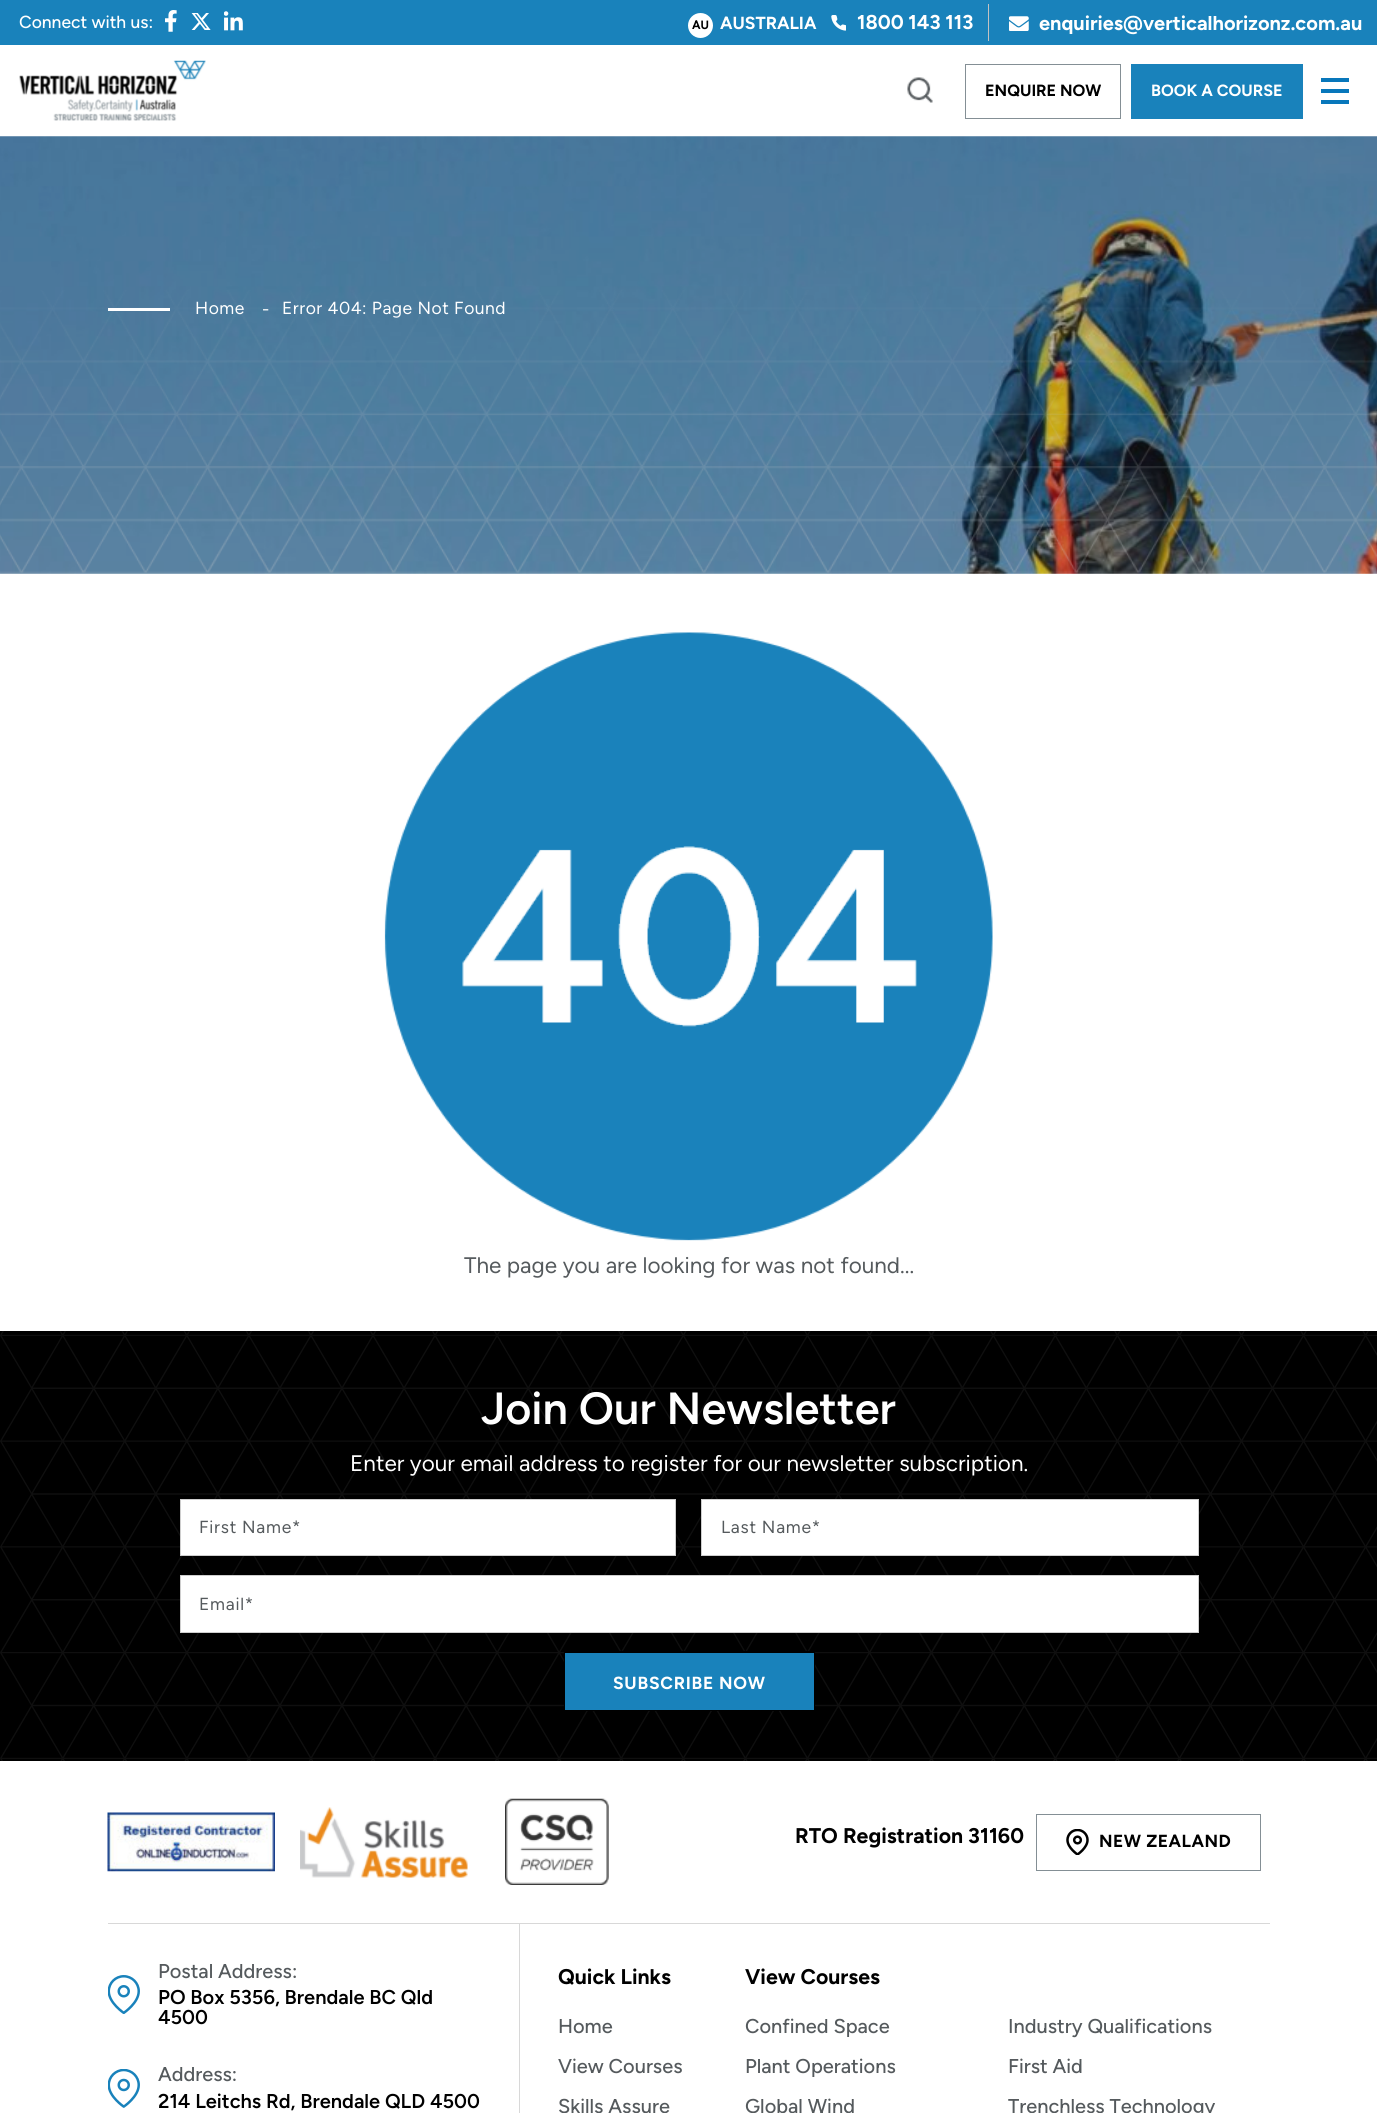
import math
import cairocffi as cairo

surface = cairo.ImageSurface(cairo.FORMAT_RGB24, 1377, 2113)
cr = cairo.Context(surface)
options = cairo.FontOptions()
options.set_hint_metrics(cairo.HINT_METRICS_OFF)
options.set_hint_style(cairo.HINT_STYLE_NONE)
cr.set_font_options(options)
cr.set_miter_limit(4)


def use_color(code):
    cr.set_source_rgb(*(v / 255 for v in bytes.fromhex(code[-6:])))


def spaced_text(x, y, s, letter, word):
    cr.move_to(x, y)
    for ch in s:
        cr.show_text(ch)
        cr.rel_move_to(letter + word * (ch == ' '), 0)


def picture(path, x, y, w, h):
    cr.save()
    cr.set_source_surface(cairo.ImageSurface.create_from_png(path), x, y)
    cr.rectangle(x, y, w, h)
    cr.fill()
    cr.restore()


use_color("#ffffff")
cr.paint()
use_color("#1982bb")
cr.rectangle(0, 0, 1377, 45)
cr.fill()
cr.select_font_face("Figtree Medium")
cr.set_font_size(17.5)
use_color("#ffffff")
cr.move_to(19, 28)
cr.show_text("Connect with us:")
picture("img1.png", 165, 10, 12, 22)
picture("img2.png", 191, 13, 20, 17)
picture("img3.png", 224, 11, 19, 20)
cr.arc(700.5, 25.5, 12.5, 0, 2 * math.pi)
cr.fill()
cr.select_font_face("Figtree", cairo.FONT_SLANT_NORMAL, cairo.FONT_WEIGHT_BOLD)
cr.set_font_size(12)
use_color("#000000")
cr.move_to(692, 29)
cr.show_text("AU")
cr.set_font_size(17.5)
use_color("#ffffff")
cr.move_to(720, 29)
cr.show_text("AUSTRALIA")
use_color("#c2c2c2")
cr.rectangle(988, 4, 1, 37)
cr.fill()
picture("img4.png", 831, 15, 15, 16)
cr.set_font_size(20)
use_color("#ffffff")
cr.move_to(857, 29)
cr.show_text("1800 143 113")
picture("img5.png", 1009, 16, 20, 15)
cr.move_to(1039, 30)
cr.show_text("enquiries@verticalhorizonz.com.au")
picture("img6.png", 19, 60, 187, 61)
picture("img7.png", 907, 77, 26, 26)
cr.rectangle(965.5, 64.5, 155, 54)
use_color("#848f95")
cr.set_line_width(1)
cr.stroke()
cr.set_font_size(16.25)
use_color("#000000")
cr.move_to(985, 96)
cr.show_text("ENQUIRE NOW")
use_color("#1982bb")
cr.rectangle(1131, 64, 172, 55)
cr.fill()
use_color("#ffffff")
cr.move_to(1151, 96)
cr.show_text("BOOK A COURSE")
use_color("#0877bb")
cr.rectangle(1321, 89, 28, 4)
cr.fill()
cr.rectangle(1321, 78, 28, 4)
cr.fill()
cr.rectangle(1321, 100, 28, 4)
cr.fill()
picture("img8.png", 0, 136, 1377, 438)
picture("img9.png", 0, 290, 1377, 284)
use_color("#ffffff")
cr.rectangle(108, 308, 62, 3)
cr.fill()
cr.select_font_face("Figtree")
cr.set_font_size(17.5)
spaced_text(195, 314, "Home", 0.5, 0)
spaced_text(262, 315, "-", 0.5, 0)
spaced_text(282, 314, "Error 404: Page Not Found", 0.5, 0)
picture("img10.png", 384, 632, 609, 609)
cr.set_font_size(22.5)
use_color("#555a5d")
cr.move_to(464, 1273)
cr.show_text("The page you are looking for was not found...")
use_color("#000000")
cr.rectangle(0, 1331, 1377, 430)
cr.fill()
picture("img11.png", 0, 1331, 1377, 430)
cr.select_font_face("Figtree SemiBold")
cr.set_font_size(45)
use_color("#ffffff")
cr.move_to(481, 1424)
cr.show_text("Join Our Newsletter")
cr.select_font_face("Figtree")
cr.set_font_size(22.5)
cr.move_to(350, 1471)
cr.show_text("Enter your email address to register for our newsletter subscription.")
cr.rectangle(180.5, 1499.5, 495, 56)
cr.fill_preserve()
use_color("#cecece")
cr.stroke()
cr.set_font_size(17.5)
use_color("#555a5d")
spaced_text(199, 1533, "First Name*", 0.75, 0)
use_color("#ffffff")
cr.rectangle(701.5, 1499.5, 497, 56)
cr.fill_preserve()
use_color("#cecece")
cr.stroke()
use_color("#555a5d")
spaced_text(721, 1533, "Last Name*", 0.75, 0)
use_color("#ffffff")
cr.rectangle(180.5, 1575.5, 1018, 57)
cr.fill_preserve()
use_color("#cecece")
cr.stroke()
use_color("#555a5d")
spaced_text(199, 1610, "Email*", 0.75, 0)
use_color("#000000")
cr.rectangle(564, 1651, 251, 60)
cr.fill()
use_color("#1982bb")
cr.rectangle(565, 1653, 249, 57)
cr.fill()
cr.select_font_face("Figtree", cairo.FONT_SLANT_NORMAL, cairo.FONT_WEIGHT_BOLD)
use_color("#ffffff")
spaced_text(613, 1689, "SUBSCRIBE NOW", 0.75, 0)
use_color("#d8d8d8")
cr.rectangle(108, 1923, 1162, 1)
cr.fill()
picture("img12.png", 107, 1812, 168, 60)
picture("img13.png", 300, 1807, 168, 71)
picture("img14.png", 505, 1798, 104, 87)
cr.set_font_size(21.25)
use_color("#000000")
cr.move_to(795, 1843)
cr.show_text("RTO Registration 31160")
cr.rectangle(1036.5, 1814.5, 224, 56)
use_color("#848f95")
cr.stroke()
picture("img15.png", 1066, 1829, 23, 26)
cr.set_font_size(17.5)
use_color("#000000")
spaced_text(1099, 1847, "NEW ZEALAND", 0.5, 0)
use_color("#d8d8d8")
cr.rectangle(519, 1924, 1, 189)
cr.fill()
picture("img16.png", 108, 1975, 32, 39)
cr.select_font_face("Figtree Medium")
cr.set_font_size(20)
use_color("#555a5d")
cr.move_to(158, 1978)
cr.show_text("Postal Address:")
cr.select_font_face("Figtree SemiBold")
use_color("#000000")
cr.move_to(158, 2004)
cr.show_text("PO Box 5356, Brendale BC Qld")
cr.move_to(158, 2024)
cr.show_text("4500")
picture("img17.png", 108, 2069, 32, 39)
cr.select_font_face("Figtree Medium")
use_color("#555a5d")
cr.move_to(158, 2081)
cr.show_text("Address:")
cr.select_font_face("Figtree SemiBold")
use_color("#000000")
cr.move_to(158, 2108)
cr.show_text("214 Leitchs Rd, Brendale QLD 4500")
cr.select_font_face("Figtree", cairo.FONT_SLANT_NORMAL, cairo.FONT_WEIGHT_BOLD)
cr.set_font_size(21.25)
cr.move_to(558, 1984)
cr.show_text("Quick Links")
cr.select_font_face("Figtree Medium")
cr.set_font_size(20)
use_color("#555a5d")
cr.move_to(558, 2033)
cr.show_text("Home")
cr.move_to(558, 2073)
cr.show_text("View Courses")
cr.move_to(558, 2113)
cr.show_text("Skills Assure")
cr.select_font_face("Figtree", cairo.FONT_SLANT_NORMAL, cairo.FONT_WEIGHT_BOLD)
cr.set_font_size(21.25)
use_color("#000000")
cr.move_to(745, 1984)
cr.show_text("View Courses")
cr.select_font_face("Figtree Medium")
cr.set_font_size(20)
use_color("#555a5d")
cr.move_to(745, 2033)
cr.show_text("Confined Space")
cr.move_to(1008, 2033)
cr.show_text("Industry Qualifications")
cr.move_to(745, 2073)
cr.show_text("Plant Operations")
cr.move_to(1008, 2073)
cr.show_text("First Aid")
cr.move_to(745, 2113)
cr.show_text("Global Wind")
cr.move_to(1008, 2113)
cr.show_text("Trenchless Technology")
surface.write_to_png("result.png")
